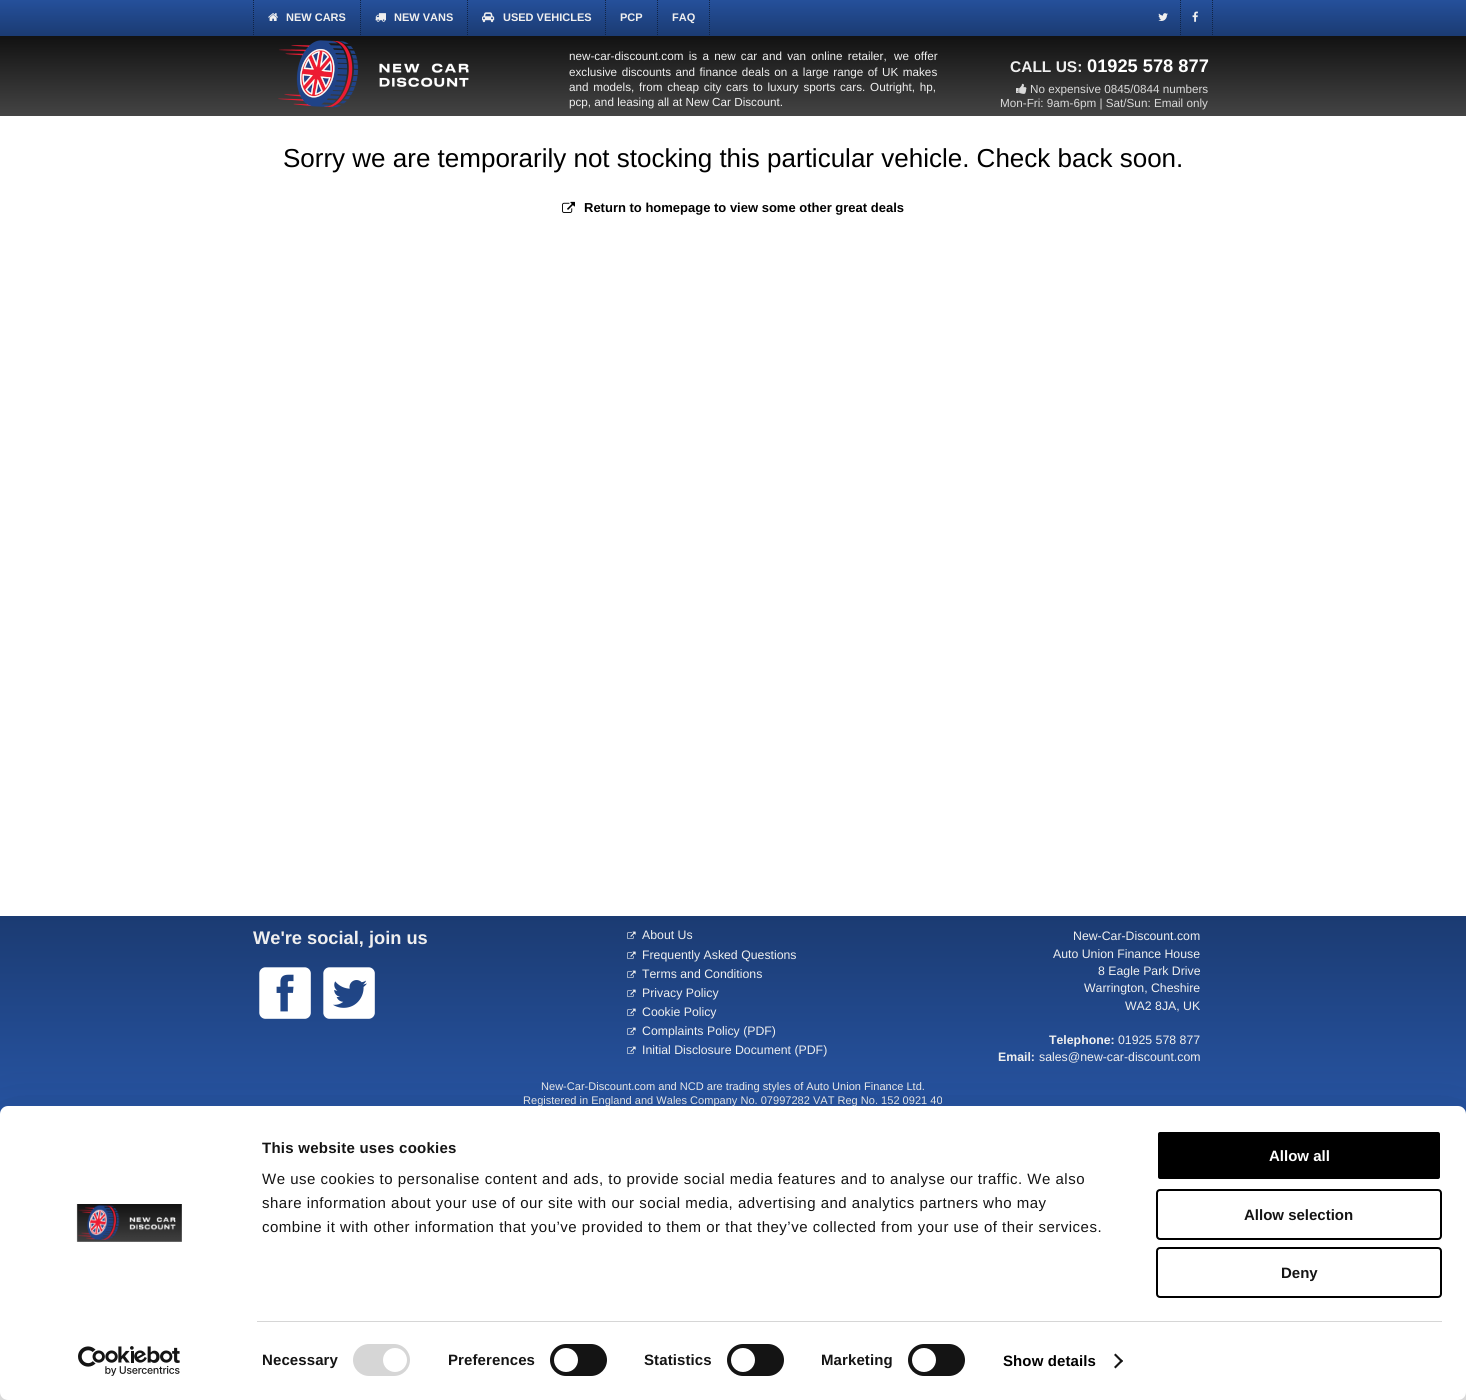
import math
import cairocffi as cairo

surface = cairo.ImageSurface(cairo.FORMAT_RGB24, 1466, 1400)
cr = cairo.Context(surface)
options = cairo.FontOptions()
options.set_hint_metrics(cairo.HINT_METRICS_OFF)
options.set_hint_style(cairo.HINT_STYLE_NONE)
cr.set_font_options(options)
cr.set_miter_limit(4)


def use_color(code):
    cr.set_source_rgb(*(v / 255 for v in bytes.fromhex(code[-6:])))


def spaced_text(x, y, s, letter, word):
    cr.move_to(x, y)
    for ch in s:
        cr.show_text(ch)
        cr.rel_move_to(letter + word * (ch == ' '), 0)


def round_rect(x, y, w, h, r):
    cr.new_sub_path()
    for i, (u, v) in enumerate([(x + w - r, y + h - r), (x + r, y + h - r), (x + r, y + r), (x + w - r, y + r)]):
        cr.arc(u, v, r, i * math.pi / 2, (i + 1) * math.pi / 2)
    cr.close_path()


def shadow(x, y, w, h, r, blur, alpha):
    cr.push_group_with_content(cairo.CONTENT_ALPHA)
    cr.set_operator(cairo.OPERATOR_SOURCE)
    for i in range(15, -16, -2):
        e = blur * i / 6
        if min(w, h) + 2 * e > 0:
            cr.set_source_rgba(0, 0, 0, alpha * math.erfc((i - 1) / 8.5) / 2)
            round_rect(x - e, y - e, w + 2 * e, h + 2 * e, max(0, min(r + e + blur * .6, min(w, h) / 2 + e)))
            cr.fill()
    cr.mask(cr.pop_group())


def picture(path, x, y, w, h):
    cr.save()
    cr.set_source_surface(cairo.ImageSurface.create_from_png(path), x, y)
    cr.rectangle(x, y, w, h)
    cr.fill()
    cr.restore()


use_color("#ffffff")
cr.paint()
gradient = cairo.LinearGradient(733, 0, 733, 36)
gradient.add_color_stop_rgba(0, 0.145, 0.314, 0.608, 1)
gradient.add_color_stop_rgba(1, 0.106, 0.231, 0.447, 1)
cr.set_source(gradient)
cr.rectangle(0, 0, 1466, 36)
cr.fill()
cr.new_path()
cr.move_to(360.5, 0)
cr.line_to(360.5, 36)
use_color("#112445")
cr.set_line_width(1)
cr.set_dash([1, 1])
cr.stroke()
cr.new_path()
cr.move_to(253.5, 0)
cr.line_to(253.5, 36)
cr.stroke()
picture("img1.png", 268, 13, 10, 8)
cr.select_font_face("Liberation Sans", cairo.FONT_SLANT_NORMAL, cairo.FONT_WEIGHT_BOLD)
cr.set_font_size(11)
use_color("#efefef")
cr.move_to(286, 21)
cr.show_text("NEW CARS")
cr.new_path()
cr.move_to(467.5, 0)
cr.line_to(467.5, 36)
use_color("#112445")
cr.stroke()
picture("img2.png", 375, 13, 11, 9)
use_color("#efefef")
cr.move_to(394, 21)
cr.show_text("NEW VANS")
cr.new_path()
cr.move_to(605.5, 0)
cr.line_to(605.5, 36)
use_color("#112445")
cr.stroke()
picture("img3.png", 482, 12, 13, 11)
use_color("#efefef")
cr.move_to(503, 21)
cr.show_text("USED VEHICLES")
cr.new_path()
cr.move_to(657.5, 0)
cr.line_to(657.5, 36)
use_color("#112445")
cr.stroke()
use_color("#efefef")
cr.move_to(620, 21)
cr.show_text("PCP")
cr.new_path()
cr.move_to(709.5, 0)
cr.line_to(709.5, 36)
use_color("#112445")
cr.stroke()
use_color("#efefef")
cr.move_to(672, 21)
cr.show_text("FAQ")
cr.new_path()
cr.move_to(1180.5, 0)
cr.line_to(1180.5, 36)
use_color("#112445")
cr.stroke()
picture("img4.png", 1158, 13, 10, 8)
cr.new_path()
cr.move_to(1212.5, 0)
cr.line_to(1212.5, 36)
cr.stroke()
picture("img5.png", 1192, 11, 6, 11)
gradient = cairo.LinearGradient(733, 35, 733, 116)
gradient.add_color_stop_rgba(0, 0.067, 0.067, 0.067, 1)
gradient.add_color_stop_rgba(1, 0.267, 0.267, 0.267, 1)
cr.set_source(gradient)
cr.rectangle(0, 36, 1466, 80)
cr.fill()
picture("img6.png", 278, 40, 191, 68)
cr.select_font_face("Liberation Sans")
cr.set_font_size(11.7)
use_color("#efefef")
spaced_text(569, 60, "new-car-discount.com is a new car and van online retailer,", 0, 2)
spaced_text(894, 60, "we offer", 0, 2)
spaced_text(569, 76, "exclusive discounts and finance deals on a large range of UK makes", 0, 1.25)
spaced_text(569, 91, "and models, from cheap city cars to luxury sports cars. Outright, hp,", 0, 1.5)
cr.move_to(569, 106)
cr.show_text("pcp, and leasing all at New Car Discount.")
cr.select_font_face("Liberation Sans", cairo.FONT_SLANT_NORMAL, cairo.FONT_WEIGHT_BOLD)
cr.set_font_size(15.5)
cr.move_to(1010, 72)
cr.show_text("CALL US:")
cr.set_font_size(18.25)
use_color("#ffffff")
cr.move_to(1087, 72)
cr.show_text("01925 578 877")
picture("img7.png", 1016, 83, 11, 11)
cr.select_font_face("Liberation Sans")
cr.set_font_size(11.7)
use_color("#dadada")
cr.move_to(1030, 93)
cr.show_text("No expensive 0845/0844 numbers")
cr.move_to(1000, 107)
cr.show_text("Mon-Fri: 9am-6pm | Sat/Sun: Email only")
cr.set_font_size(26)
use_color("#000000")
cr.move_to(283, 167)
cr.show_text("Sorry we are temporarily not stocking this particular vehicle. Check back soon.")
picture("img8.png", 562, 201, 13, 12)
cr.select_font_face("Liberation Sans", cairo.FONT_SLANT_NORMAL, cairo.FONT_WEIGHT_BOLD)
cr.set_font_size(13)
cr.move_to(584, 212)
cr.show_text("Return to homepage to view some other great deals")
gradient = cairo.LinearGradient(733, 916, 733, 1163)
gradient.add_color_stop_rgba(0, 0.106, 0.231, 0.447, 1)
gradient.add_color_stop_rgba(1, 0.165, 0.357, 0.69, 1)
cr.set_source(gradient)
cr.rectangle(0, 916, 1466, 198)
cr.fill()
cr.set_font_size(18.25)
use_color("#efefef")
cr.move_to(253, 944)
cr.show_text("We're social, join us")
picture("img9.png", 259, 967, 52, 52)
picture("img10.png", 323, 967, 52, 52)
picture("img11.png", 627, 931, 9, 8)
cr.select_font_face("Liberation Sans")
cr.set_font_size(12.3)
cr.move_to(642, 939)
cr.show_text("About Us")
picture("img12.png", 627, 951, 9, 8)
cr.move_to(642, 959)
cr.show_text("Frequently Asked Questions")
picture("img13.png", 627, 970, 9, 8)
cr.move_to(642, 978)
cr.show_text("Terms and Conditions")
picture("img14.png", 627, 989, 9, 8)
cr.move_to(642, 997)
cr.show_text("Privacy Policy")
picture("img15.png", 627, 1008, 9, 8)
cr.move_to(642, 1016)
cr.show_text("Cookie Policy")
picture("img16.png", 627, 1027, 9, 8)
cr.move_to(642, 1035)
cr.show_text("Complaints Policy (PDF)")
picture("img17.png", 627, 1046, 9, 8)
cr.move_to(642, 1054)
cr.show_text("Initial Disclosure Document (PDF)")
cr.move_to(1073, 940)
cr.show_text("New-Car-Discount.com")
cr.move_to(1053, 958)
cr.show_text("Auto Union Finance House")
cr.move_to(1098, 975)
cr.show_text("8 Eagle Park Drive")
cr.move_to(1084, 992)
cr.show_text("Warrington, Cheshire")
cr.move_to(1125, 1010)
cr.show_text("WA2 8JA, UK")
cr.select_font_face("Liberation Sans", cairo.FONT_SLANT_NORMAL, cairo.FONT_WEIGHT_BOLD)
cr.move_to(1049, 1044)
cr.show_text("Telephone:")
cr.select_font_face("Liberation Sans")
cr.move_to(1118, 1044)
cr.show_text("01925 578 877")
cr.select_font_face("Liberation Sans", cairo.FONT_SLANT_NORMAL, cairo.FONT_WEIGHT_BOLD)
cr.move_to(998, 1061)
cr.show_text("Email:")
cr.select_font_face("Liberation Sans")
cr.move_to(1039, 1061)
cr.show_text("sales@new-car-discount.com")
cr.set_font_size(11.05)
cr.move_to(541, 1090)
cr.show_text("New-Car-Discount.com and NCD are trading styles of Auto Union Finance Ltd.")
cr.move_to(523, 1104)
cr.show_text("Registered in England and Wales Company No. 07997282 VAT Reg No. 152 0921 40")
use_color("#000000")
shadow(0, 1136, 1466, 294, 8, 35, 0.3)
use_color("#ffffff")
round_rect(0, 1106, 1466, 294, 8)
cr.fill()
picture("img18.png", 76, 1204, 106, 38)
picture("img19.png", 78, 1346, 102, 30)
cr.select_font_face("Liberation Sans", cairo.FONT_SLANT_NORMAL, cairo.FONT_WEIGHT_BOLD)
cr.set_font_size(15)
use_color("#141414")
spaced_text(262, 1153, "This website uses cookies", 0.25, 0)
cr.select_font_face("Liberation Sans")
spaced_text(262, 1184, "We use cookies to personalise content and ads, to provide social media features and to analyse our traffic. We also", 0.5, 0)
spaced_text(262, 1208, "share information about your use of our site with our social media, advertising and analytics partners who may", 0.5, 0)
spaced_text(262, 1232, "combine it with other information that you’ve provided to them or that they’ve collected from your use of their services.", 0.5, 0)
use_color("#d6d6d6")
cr.rectangle(257, 1321, 1185, 1)
cr.fill()
cr.select_font_face("Liberation Sans", cairo.FONT_SLANT_NORMAL, cairo.FONT_WEIGHT_BOLD)
use_color("#141414")
spaced_text(262, 1365, "Necessary", 0.1, 0)
use_color("#d6d6d6")
round_rect(353, 1344, 57, 32, 16)
cr.fill()
use_color("#ffffff")
cr.arc(395, 1360, 12, 0, 2 * math.pi)
cr.fill()
use_color("#141414")
spaced_text(448, 1365, "Preferences", 0.1, 0)
round_rect(550, 1344, 57, 32, 16)
cr.fill()
use_color("#ffffff")
cr.arc(566, 1360, 12, 0, 2 * math.pi)
cr.fill()
use_color("#141414")
spaced_text(644, 1365, "Statistics", 0.1, 0)
round_rect(727, 1344, 57, 32, 16)
cr.fill()
use_color("#ffffff")
cr.arc(743, 1360, 12, 0, 2 * math.pi)
cr.fill()
use_color("#141414")
spaced_text(821, 1365, "Marketing", 0.1, 0)
round_rect(908, 1344, 57, 32, 16)
cr.fill()
use_color("#ffffff")
cr.arc(924, 1360, 12, 0, 2 * math.pi)
cr.fill()
use_color("#000000")
spaced_text(1003, 1366, "Show details", 0.1, 0)
use_color("#141414")
cr.new_path()
cr.move_to(1115.5, 1353.5)
cr.line_to(1123, 1361)
cr.line_to(1121.5, 1362.5)
cr.line_to(1114, 1355)
cr.close_path()
cr.fill()
cr.new_path()
cr.move_to(1121.5, 1359.5)
cr.line_to(1123, 1361)
cr.line_to(1115.5, 1368.5)
cr.line_to(1114, 1367)
cr.close_path()
cr.fill()
use_color("#000000")
round_rect(1157, 1131, 284, 49, 3)
cr.fill_preserve()
use_color("#ffffff")
cr.set_line_width(2)
cr.set_dash([])
cr.stroke()
cr.move_to(1269, 1161)
cr.show_text("Allow all")
round_rect(1157, 1190, 284, 49, 3)
use_color("#000000")
cr.stroke()
use_color("#141414")
cr.move_to(1244, 1220)
cr.show_text("Allow selection")
round_rect(1157, 1248, 284, 49, 3)
use_color("#000000")
cr.stroke()
use_color("#141414")
cr.move_to(1281, 1278)
cr.show_text("Deny")
surface.write_to_png("result.png")
